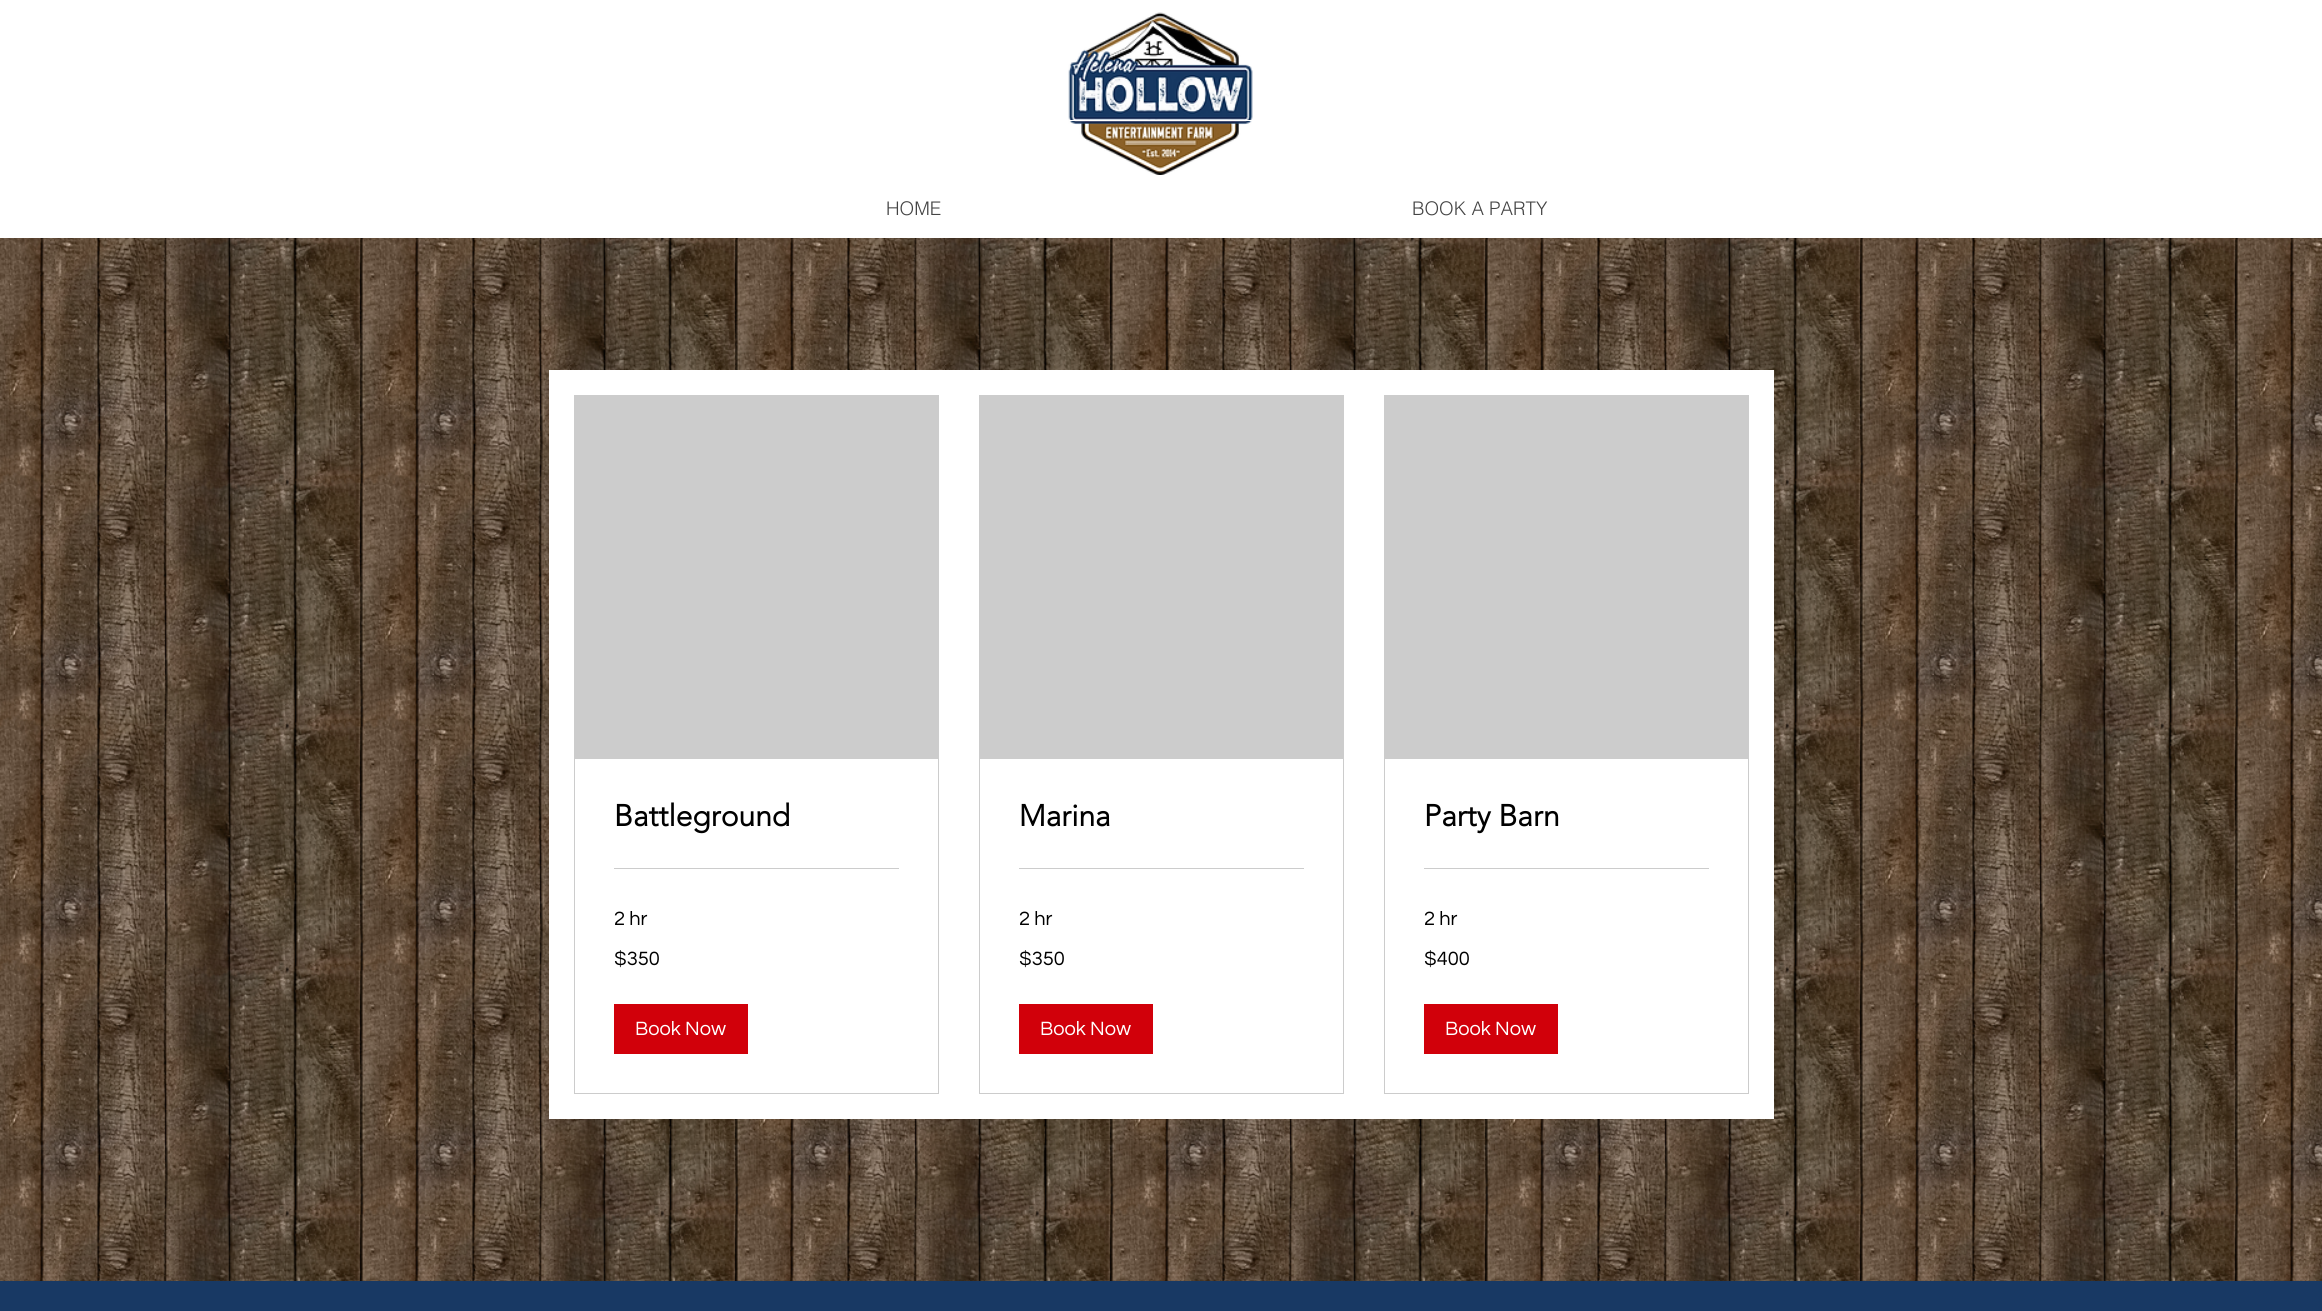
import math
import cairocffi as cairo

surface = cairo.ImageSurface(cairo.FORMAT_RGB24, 2322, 1311)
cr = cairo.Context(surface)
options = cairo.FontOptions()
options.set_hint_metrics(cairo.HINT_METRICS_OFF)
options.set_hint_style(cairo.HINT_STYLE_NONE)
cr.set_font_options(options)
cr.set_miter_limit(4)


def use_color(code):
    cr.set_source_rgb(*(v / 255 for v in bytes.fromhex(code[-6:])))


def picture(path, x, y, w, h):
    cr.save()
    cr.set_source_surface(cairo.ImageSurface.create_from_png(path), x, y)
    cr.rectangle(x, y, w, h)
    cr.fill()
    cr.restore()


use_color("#ffffff")
cr.paint()
picture("img1.png", 1068, 12, 185, 163)
use_color("#ffffff")
cr.rectangle(1069, 120, 183, 1)
cr.fill()
cr.select_font_face("helvetica Light")
cr.set_font_size(18.75)
use_color("#444444")
cr.move_to(886, 215)
cr.show_text("HOME")
cr.move_to(1412, 215)
cr.show_text("BOOK A PARTY")
picture("img2.png", 0, 238, 2322, 1043)
use_color("#ffffff")
cr.rectangle(549, 370, 1225, 749)
cr.fill()
cr.rectangle(574.5, 395.5, 364, 698)
use_color("#cccccc")
cr.set_line_width(1)
cr.stroke()
cr.rectangle(575, 396, 363, 363)
cr.fill()
cr.select_font_face("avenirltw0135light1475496", cairo.FONT_SLANT_NORMAL, cairo.FONT_WEIGHT_BOLD)
cr.set_font_size(30)
use_color("#000000")
cr.move_to(614, 826)
cr.show_text("Battleground")
use_color("#cccccc")
cr.rectangle(614, 868, 285, 1)
cr.fill()
cr.select_font_face("Questrial")
cr.set_font_size(20)
use_color("#000000")
cr.move_to(614, 925)
cr.show_text("2 hr")
cr.move_to(614, 965)
cr.show_text("$350")
use_color("#d1000a")
cr.rectangle(614, 1004, 134, 50)
cr.fill()
use_color("#ffffff")
cr.move_to(635, 1035)
cr.show_text("Book Now")
cr.rectangle(979.5, 395.5, 364, 698)
use_color("#cccccc")
cr.stroke()
cr.rectangle(980, 396, 363, 363)
cr.fill()
cr.select_font_face("avenirltw0135light1475496", cairo.FONT_SLANT_NORMAL, cairo.FONT_WEIGHT_BOLD)
cr.set_font_size(30)
use_color("#000000")
cr.move_to(1019, 826)
cr.show_text("Marina")
use_color("#cccccc")
cr.rectangle(1019, 868, 285, 1)
cr.fill()
cr.select_font_face("Questrial")
cr.set_font_size(20)
use_color("#000000")
cr.move_to(1019, 925)
cr.show_text("2 hr")
cr.move_to(1019, 965)
cr.show_text("$350")
use_color("#d1000a")
cr.rectangle(1019, 1004, 134, 50)
cr.fill()
use_color("#ffffff")
cr.move_to(1040, 1035)
cr.show_text("Book Now")
cr.rectangle(1384.5, 395.5, 364, 698)
use_color("#cccccc")
cr.stroke()
cr.rectangle(1385, 396, 363, 363)
cr.fill()
cr.select_font_face("avenirltw0135light1475496", cairo.FONT_SLANT_NORMAL, cairo.FONT_WEIGHT_BOLD)
cr.set_font_size(30)
use_color("#000000")
cr.move_to(1424, 826)
cr.show_text("Party Barn")
use_color("#cccccc")
cr.rectangle(1424, 868, 285, 1)
cr.fill()
cr.select_font_face("Questrial")
cr.set_font_size(20)
use_color("#000000")
cr.move_to(1424, 925)
cr.show_text("2 hr")
cr.move_to(1424, 965)
cr.show_text("$400")
use_color("#d1000a")
cr.rectangle(1424, 1004, 134, 50)
cr.fill()
use_color("#ffffff")
cr.move_to(1445, 1035)
cr.show_text("Book Now")
use_color("#183964")
cr.rectangle(0, 1281, 2322, 30)
cr.fill()
surface.write_to_png("result.png")
